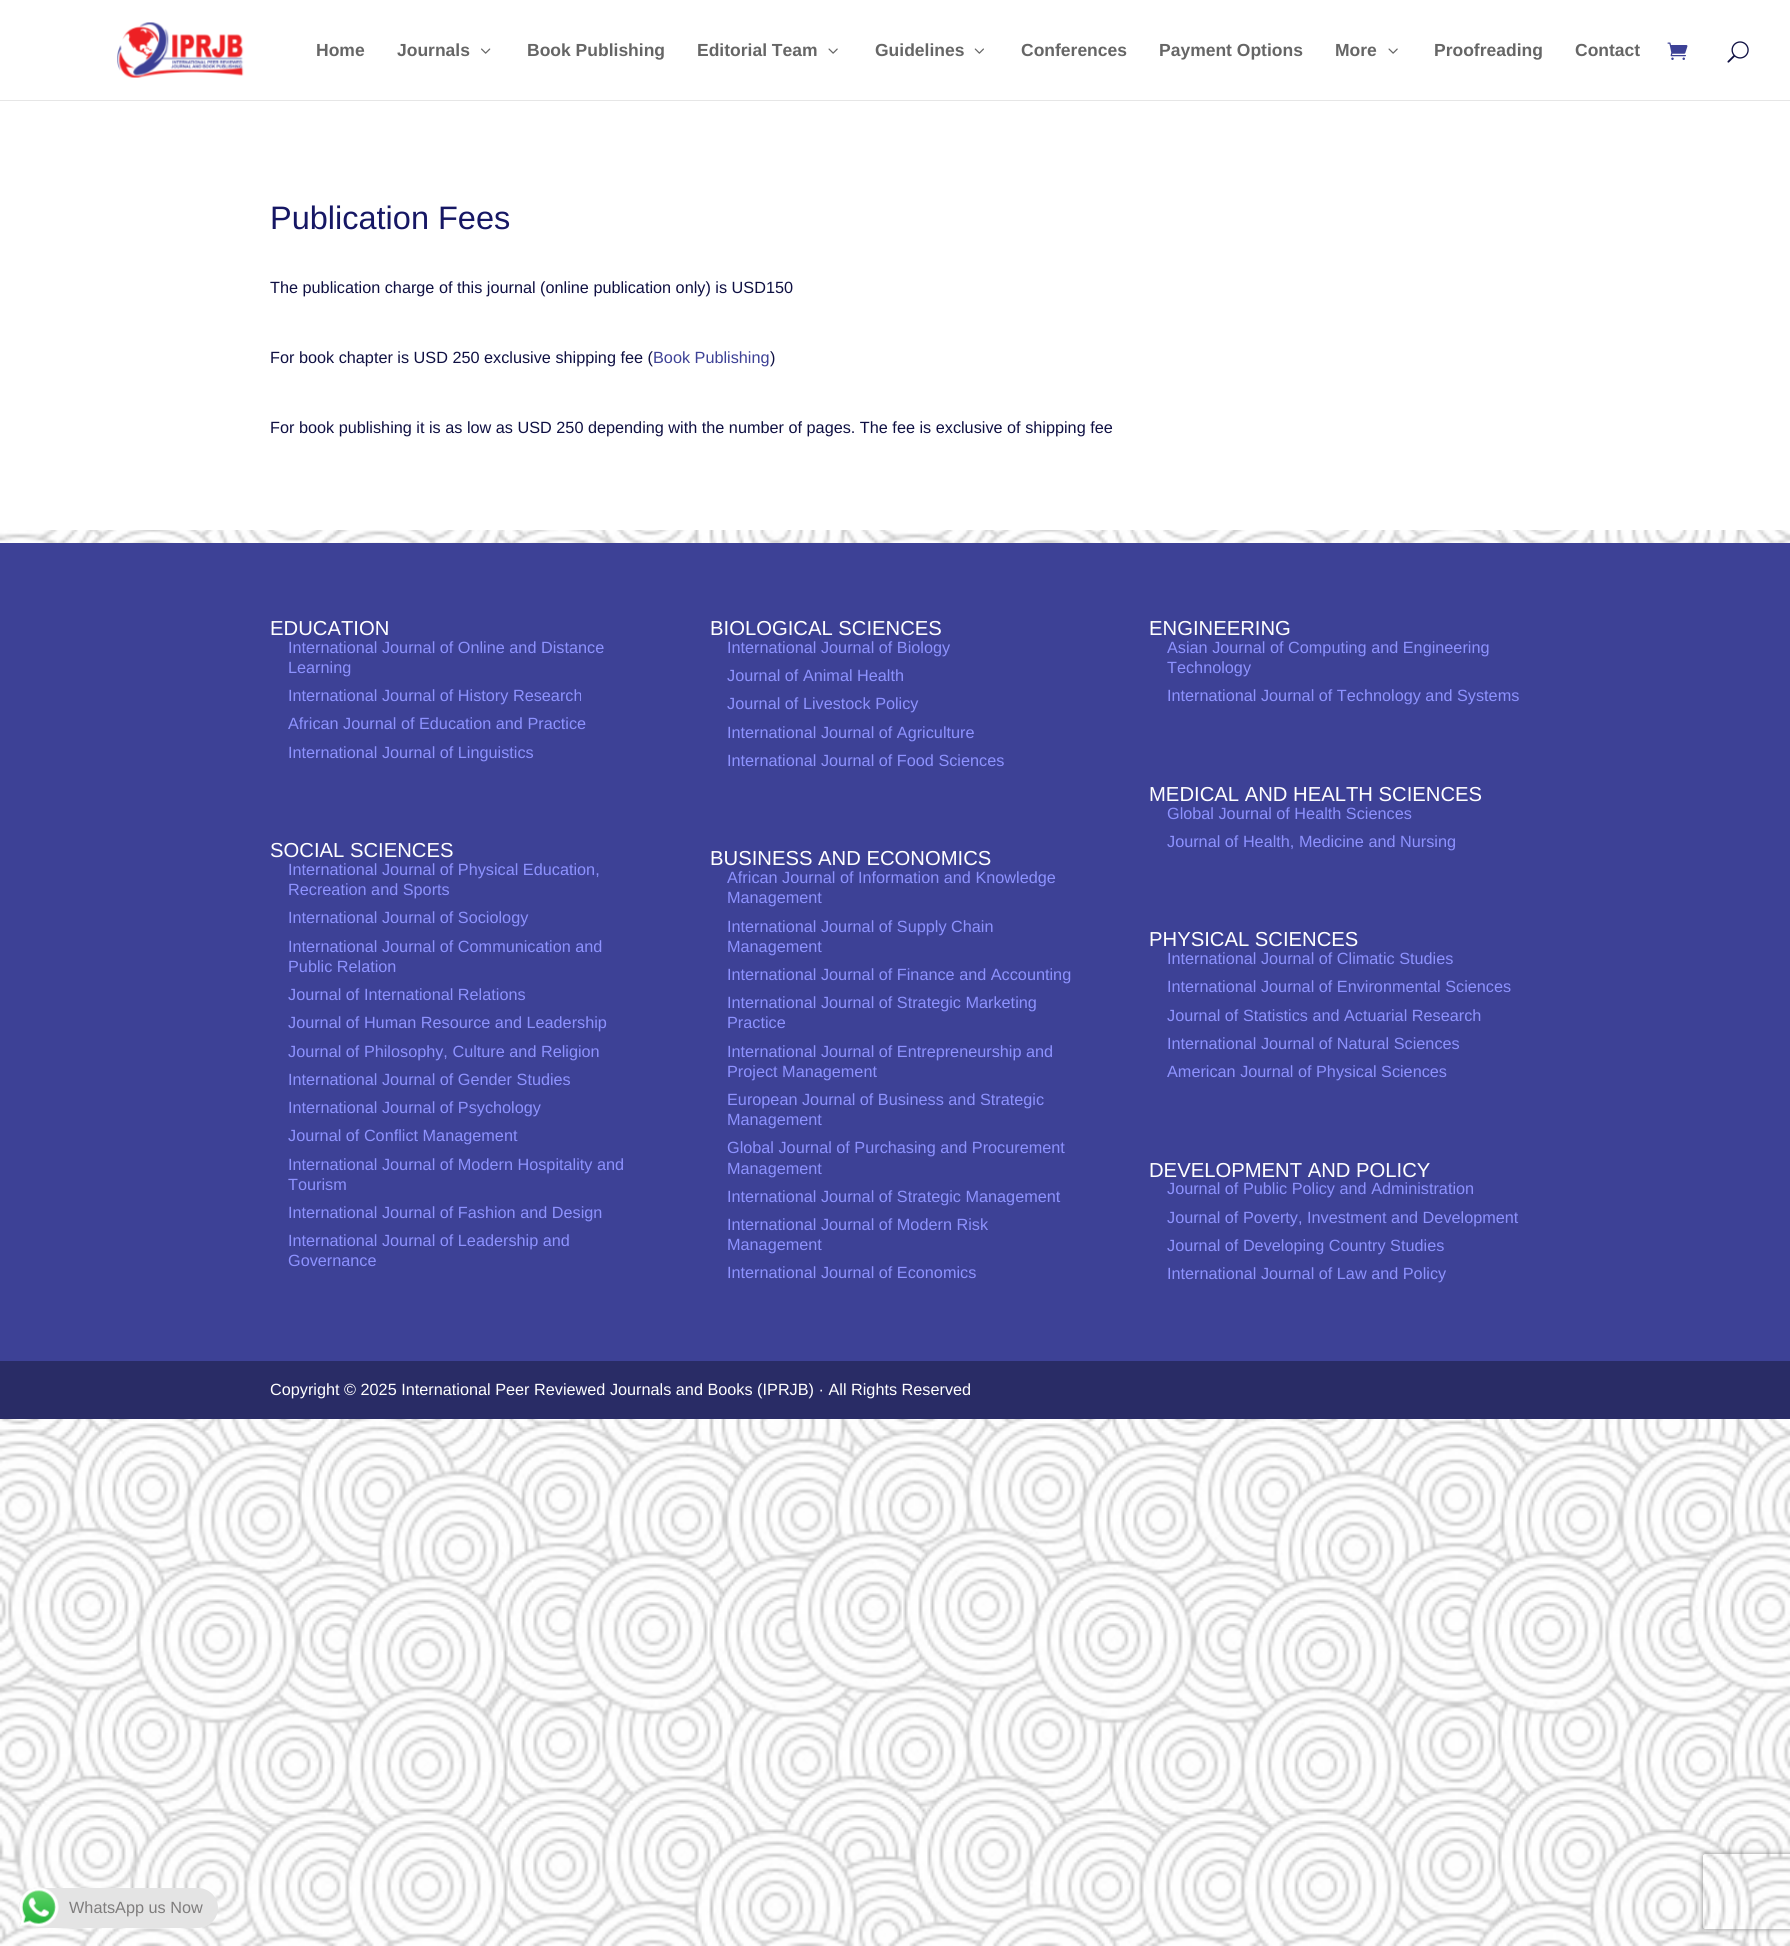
import math
import cairocffi as cairo

surface = cairo.ImageSurface(cairo.FORMAT_RGB24, 1790, 1946)
cr = cairo.Context(surface)
options = cairo.FontOptions()
options.set_hint_metrics(cairo.HINT_METRICS_OFF)
options.set_hint_style(cairo.HINT_STYLE_NONE)
cr.set_font_options(options)
cr.set_miter_limit(4)


def use_color(code):
    cr.set_source_rgb(*(v / 255 for v in bytes.fromhex(code[-6:])))


def round_rect(x, y, w, h, r):
    cr.new_sub_path()
    for i, (u, v) in enumerate([(x + w - r, y + h - r), (x + r, y + h - r), (x + r, y + r), (x + w - r, y + r)]):
        cr.arc(u, v, r, i * math.pi / 2, (i + 1) * math.pi / 2)
    cr.close_path()


def shadow(x, y, w, h, r, blur, alpha):
    cr.push_group_with_content(cairo.CONTENT_ALPHA)
    cr.set_operator(cairo.OPERATOR_SOURCE)
    for i in range(15, -16, -2):
        e = blur * i / 6
        if min(w, h) + 2 * e > 0:
            cr.set_source_rgba(0, 0, 0, alpha * math.erfc((i - 1) / 8.5) / 2)
            round_rect(x - e, y - e, w + 2 * e, h + 2 * e, max(0, min(r + e + blur * .6, min(w, h) / 2 + e)))
            cr.fill()
    cr.mask(cr.pop_group())


def picture(path, x, y, w, h):
    cr.save()
    cr.set_source_surface(cairo.ImageSurface.create_from_png(path), x, y)
    cr.rectangle(x, y, w, h)
    cr.fill()
    cr.restore()


use_color("#ffffff")
cr.paint()
picture("img1.png", 0, 530, 1790, 1416)
use_color("#e6e6e6")
cr.rectangle(0, 100, 1790, 1)
cr.fill()
picture("img2.png", 117, 22, 127, 56)
cr.select_font_face("Liberation Sans", cairo.FONT_SLANT_NORMAL, cairo.FONT_WEIGHT_BOLD)
cr.set_font_size(17.5)
use_color("#666666")
cr.move_to(316, 56)
cr.show_text("Home")
cr.move_to(397, 56)
cr.show_text("Journals")
picture("img3.png", 481, 48, 10, 6)
cr.move_to(527, 56)
cr.show_text("Book Publishing")
cr.move_to(697, 56)
cr.show_text("Editorial Team")
picture("img4.png", 828, 48, 10, 6)
cr.move_to(875, 56)
cr.show_text("Guidelines")
picture("img5.png", 974, 48, 10, 6)
cr.move_to(1021, 56)
cr.show_text("Conferences")
cr.move_to(1159, 56)
cr.show_text("Payment Options")
cr.move_to(1335, 56)
cr.show_text("More")
picture("img4.png", 1388, 48, 10, 6)
cr.move_to(1434, 56)
cr.show_text("Proofreading")
cr.move_to(1575, 56)
cr.show_text("Contact")
picture("img6.png", 1667, 42, 21, 18)
picture("img7.png", 1727, 41, 22, 22)
cr.select_font_face("Liberation Sans")
cr.set_font_size(32.5)
use_color("#161764")
cr.move_to(270, 229)
cr.show_text("Publication Fees")
cr.set_font_size(16.25)
use_color("#0f1043")
cr.move_to(270, 293)
cr.show_text("The publication charge of this journal (online publication only) is USD150")
cr.move_to(270, 363)
cr.show_text("For book chapter is USD 250 exclusive shipping fee (")
use_color("#3d4196")
cr.move_to(653, 363)
cr.show_text("Book Publishing")
use_color("#0f1043")
cr.move_to(770, 363)
cr.show_text(")")
cr.move_to(270, 433)
cr.show_text("For book publishing it is as low as USD 250 depending with the number of pages. The fee is exclusive of shipping fee")
use_color("#3d4196")
cr.rectangle(0, 543, 1790, 818)
cr.fill()
cr.set_font_size(20.25)
use_color("#ffffff")
cr.move_to(270, 635)
cr.show_text("EDUCATION")
cr.set_font_size(16.25)
use_color("#8d92ff")
cr.move_to(288, 653)
cr.show_text("International Journal of Online and Distance")
cr.move_to(288, 673)
cr.show_text("Learning")
cr.move_to(288, 701)
cr.show_text("International Journal of History Research")
cr.move_to(288, 729)
cr.show_text("African Journal of Education and Practice")
cr.move_to(288, 758)
cr.show_text("International Journal of Linguistics")
cr.set_font_size(20.25)
use_color("#ffffff")
cr.move_to(270, 857)
cr.show_text("SOCIAL SCIENCES")
cr.set_font_size(16.25)
use_color("#8d92ff")
cr.move_to(288, 875)
cr.show_text("International Journal of Physical Education,")
cr.move_to(288, 895)
cr.show_text("Recreation and Sports")
cr.move_to(288, 923)
cr.show_text("International Journal of Sociology")
cr.move_to(288, 952)
cr.show_text("International Journal of Communication and")
cr.move_to(288, 972)
cr.show_text("Public Relation")
cr.move_to(288, 1000)
cr.show_text("Journal of International Relations")
cr.move_to(288, 1028)
cr.show_text("Journal of Human Resource and Leadership")
cr.move_to(288, 1057)
cr.show_text("Journal of Philosophy, Culture and Religion")
cr.move_to(288, 1085)
cr.show_text("International Journal of Gender Studies")
cr.move_to(288, 1113)
cr.show_text("International Journal of Psychology")
cr.move_to(288, 1141)
cr.show_text("Journal of Conflict Management")
cr.move_to(288, 1170)
cr.show_text("International Journal of Modern Hospitality and")
cr.move_to(288, 1190)
cr.show_text("Tourism")
cr.move_to(288, 1218)
cr.show_text("International Journal of Fashion and Design")
cr.move_to(288, 1246)
cr.show_text("International Journal of Leadership and")
cr.move_to(288, 1266)
cr.show_text("Governance")
cr.set_font_size(20.25)
use_color("#ffffff")
cr.move_to(710, 635)
cr.show_text("BIOLOGICAL SCIENCES")
cr.set_font_size(16.25)
use_color("#8d92ff")
cr.move_to(727, 653)
cr.show_text("International Journal of Biology")
cr.move_to(727, 681)
cr.show_text("Journal of Animal Health")
cr.move_to(727, 709)
cr.show_text("Journal of Livestock Policy")
cr.move_to(727, 738)
cr.show_text("International Journal of Agriculture")
cr.move_to(727, 766)
cr.show_text("International Journal of Food Sciences")
cr.set_font_size(20.25)
use_color("#ffffff")
cr.move_to(710, 865)
cr.show_text("BUSINESS AND ECONOMICS")
cr.set_font_size(16.25)
use_color("#8d92ff")
cr.move_to(727, 883)
cr.show_text("African Journal of Information and Knowledge")
cr.move_to(727, 903)
cr.show_text("Management")
cr.move_to(727, 932)
cr.show_text("International Journal of Supply Chain")
cr.move_to(727, 952)
cr.show_text("Management")
cr.move_to(727, 980)
cr.show_text("International Journal of Finance and Accounting")
cr.move_to(727, 1008)
cr.show_text("International Journal of Strategic Marketing")
cr.move_to(727, 1028)
cr.show_text("Practice")
cr.move_to(727, 1057)
cr.show_text("International Journal of Entrepreneurship and")
cr.move_to(727, 1077)
cr.show_text("Project Management")
cr.move_to(727, 1105)
cr.show_text("European Journal of Business and Strategic")
cr.move_to(727, 1125)
cr.show_text("Management")
cr.move_to(727, 1153)
cr.show_text("Global Journal of Purchasing and Procurement")
cr.move_to(727, 1174)
cr.show_text("Management")
cr.move_to(727, 1202)
cr.show_text("International Journal of Strategic Management")
cr.move_to(727, 1230)
cr.show_text("International Journal of Modern Risk")
cr.move_to(727, 1250)
cr.show_text("Management")
cr.move_to(727, 1278)
cr.show_text("International Journal of Economics")
cr.set_font_size(20.25)
use_color("#ffffff")
cr.move_to(1149, 635)
cr.show_text("ENGINEERING")
cr.set_font_size(16.25)
use_color("#8d92ff")
cr.move_to(1167, 653)
cr.show_text("Asian Journal of Computing and Engineering")
cr.move_to(1167, 673)
cr.show_text("Technology")
cr.move_to(1167, 701)
cr.show_text("International Journal of Technology and Systems")
cr.set_font_size(20.25)
use_color("#ffffff")
cr.move_to(1149, 801)
cr.show_text("MEDICAL AND HEALTH SCIENCES")
cr.set_font_size(16.25)
use_color("#8d92ff")
cr.move_to(1167, 819)
cr.show_text("Global Journal of Health Sciences")
cr.move_to(1167, 847)
cr.show_text("Journal of Health, Medicine and Nursing")
cr.set_font_size(20.25)
use_color("#ffffff")
cr.move_to(1149, 946)
cr.show_text("PHYSICAL SCIENCES")
cr.set_font_size(16.25)
use_color("#8d92ff")
cr.move_to(1167, 964)
cr.show_text("International Journal of Climatic Studies")
cr.move_to(1167, 992)
cr.show_text("International Journal of Environmental Sciences")
cr.move_to(1167, 1021)
cr.show_text("Journal of Statistics and Actuarial Research")
cr.move_to(1167, 1049)
cr.show_text("International Journal of Natural Sciences")
cr.move_to(1167, 1077)
cr.show_text("American Journal of Physical Sciences")
cr.set_font_size(20.25)
use_color("#ffffff")
cr.move_to(1149, 1177)
cr.show_text("DEVELOPMENT AND POLICY")
cr.set_font_size(16.25)
use_color("#8d92ff")
cr.move_to(1167, 1194)
cr.show_text("Journal of Public Policy and Administration")
cr.move_to(1167, 1223)
cr.show_text("Journal of Poverty, Investment and Development")
cr.move_to(1167, 1251)
cr.show_text("Journal of Developing Country Studies")
cr.move_to(1167, 1279)
cr.show_text("International Journal of Law and Policy")
use_color("#292c66")
cr.rectangle(0, 1361, 1790, 58)
cr.fill()
use_color("#ffffff")
cr.move_to(270, 1395)
cr.show_text("Copyright © 2025 International Peer Reviewed Journals and Books (IPRJB) · All Rights Reserved")
use_color("#e4e4e4")
round_rect(19, 1888, 199, 40, 20)
cr.fill()
picture("img8.png", 19, 1887, 40, 40)
use_color("#7f7d7d")
cr.move_to(69, 1913)
cr.show_text("WhatsApp us Now")
cr.save()
cr.set_fill_rule(cairo.FILL_RULE_EVEN_ODD)
cr.new_path()
cr.move_to(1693, 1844)
cr.line_to(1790, 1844)
cr.line_to(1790, 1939)
cr.line_to(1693, 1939)
cr.close_path()
cr.move_to(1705.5, 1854)
cr.line_to(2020.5, 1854)
cr.curve_to(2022, 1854, 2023, 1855, 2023, 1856.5)
cr.line_to(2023, 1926.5)
cr.curve_to(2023, 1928, 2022, 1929, 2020.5, 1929)
cr.line_to(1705.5, 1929)
cr.curve_to(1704, 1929, 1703, 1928, 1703, 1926.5)
cr.line_to(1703, 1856.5)
cr.curve_to(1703, 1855, 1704, 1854, 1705.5, 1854)
cr.close_path()
cr.clip()
use_color("#808080")
shadow(1703, 1854, 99, 75, 2.5, 3, 1)
cr.restore()
surface.write_to_png("result.png")
